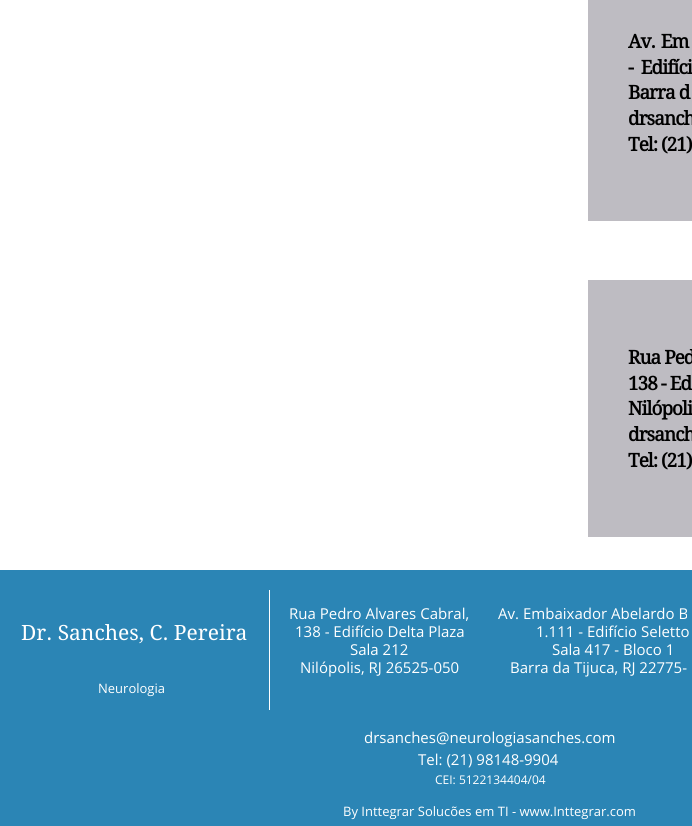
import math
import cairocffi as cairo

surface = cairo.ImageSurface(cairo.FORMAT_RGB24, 692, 826)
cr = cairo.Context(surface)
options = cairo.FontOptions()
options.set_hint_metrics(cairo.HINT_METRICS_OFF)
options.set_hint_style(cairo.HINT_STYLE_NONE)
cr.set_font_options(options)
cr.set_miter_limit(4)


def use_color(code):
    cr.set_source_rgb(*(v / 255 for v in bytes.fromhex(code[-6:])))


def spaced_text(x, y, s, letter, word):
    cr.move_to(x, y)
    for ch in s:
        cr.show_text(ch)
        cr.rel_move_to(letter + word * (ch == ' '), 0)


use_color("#ffffff")
cr.paint()
use_color("#bebcc2")
cr.rectangle(588, 0, 104, 221)
cr.fill()
cr.select_font_face("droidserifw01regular", cairo.FONT_SLANT_NORMAL, cairo.FONT_WEIGHT_BOLD)
cr.set_font_size(19)
use_color("#000000")
spaced_text(628, 48, "Av. Em", -1, 2)
spaced_text(628, 74, "-  Edifíci", -1, 0)
spaced_text(628, 99, "Barra d", -1, 0)
spaced_text(628, 125, "drsanch", -1, 0)
spaced_text(628, 151, "Tel: (21)", -1, 0)
use_color("#bebcc2")
cr.rectangle(588, 280, 104, 257)
cr.fill()
use_color("#000000")
spaced_text(628, 364, "Rua Ped", -1, 0)
spaced_text(628, 390, "138 - Ed", -1, 0)
spaced_text(628, 415, "Nilópoli", -1, 0)
spaced_text(628, 441, "drsanch", -1, 0)
spaced_text(628, 467, "Tel: (21)", -1, 0)
use_color("#2b85b5")
cr.rectangle(0, 570, 692, 256)
cr.fill()
cr.select_font_face("droidserifw01regular")
cr.set_font_size(21)
use_color("#ffffff")
cr.move_to(21, 640)
cr.show_text("Dr. Sanches, C. Pereira")
cr.rectangle(269, 590, 1, 120)
cr.fill()
cr.select_font_face("Open Sans")
cr.set_font_size(15)
cr.move_to(289, 619)
cr.show_text("Rua Pedro Alvares Cabral,")
cr.move_to(295, 637)
cr.show_text("138 - Edifício Delta Plaza")
cr.move_to(350, 655)
cr.show_text("Sala 212")
cr.move_to(300, 673)
cr.show_text("Nilópolis, RJ 26525-050")
cr.move_to(498, 619)
cr.show_text("Av. Embaixador Abelardo B")
cr.move_to(536, 637)
cr.show_text("1.111 - Edifício Seletto")
cr.move_to(552, 655)
cr.show_text("Sala 417 - Bloco 1")
cr.move_to(510, 673)
cr.show_text("Barra da Tijuca, RJ 22775-")
cr.set_font_size(13)
cr.move_to(98, 693)
cr.show_text("Neurologia")
cr.set_font_size(15)
cr.move_to(364, 743)
cr.show_text("drsanches@neurologiasanches.com")
cr.move_to(418, 765)
cr.show_text("Tel: (21) 98148-9904")
cr.set_font_size(12)
cr.move_to(435, 784)
cr.show_text("CEI: 5122134404/04")
cr.set_font_size(13)
cr.move_to(343, 816)
cr.show_text("By Inttegrar Solucões em TI - www.Inttegrar.com")
surface.write_to_png("result.png")
